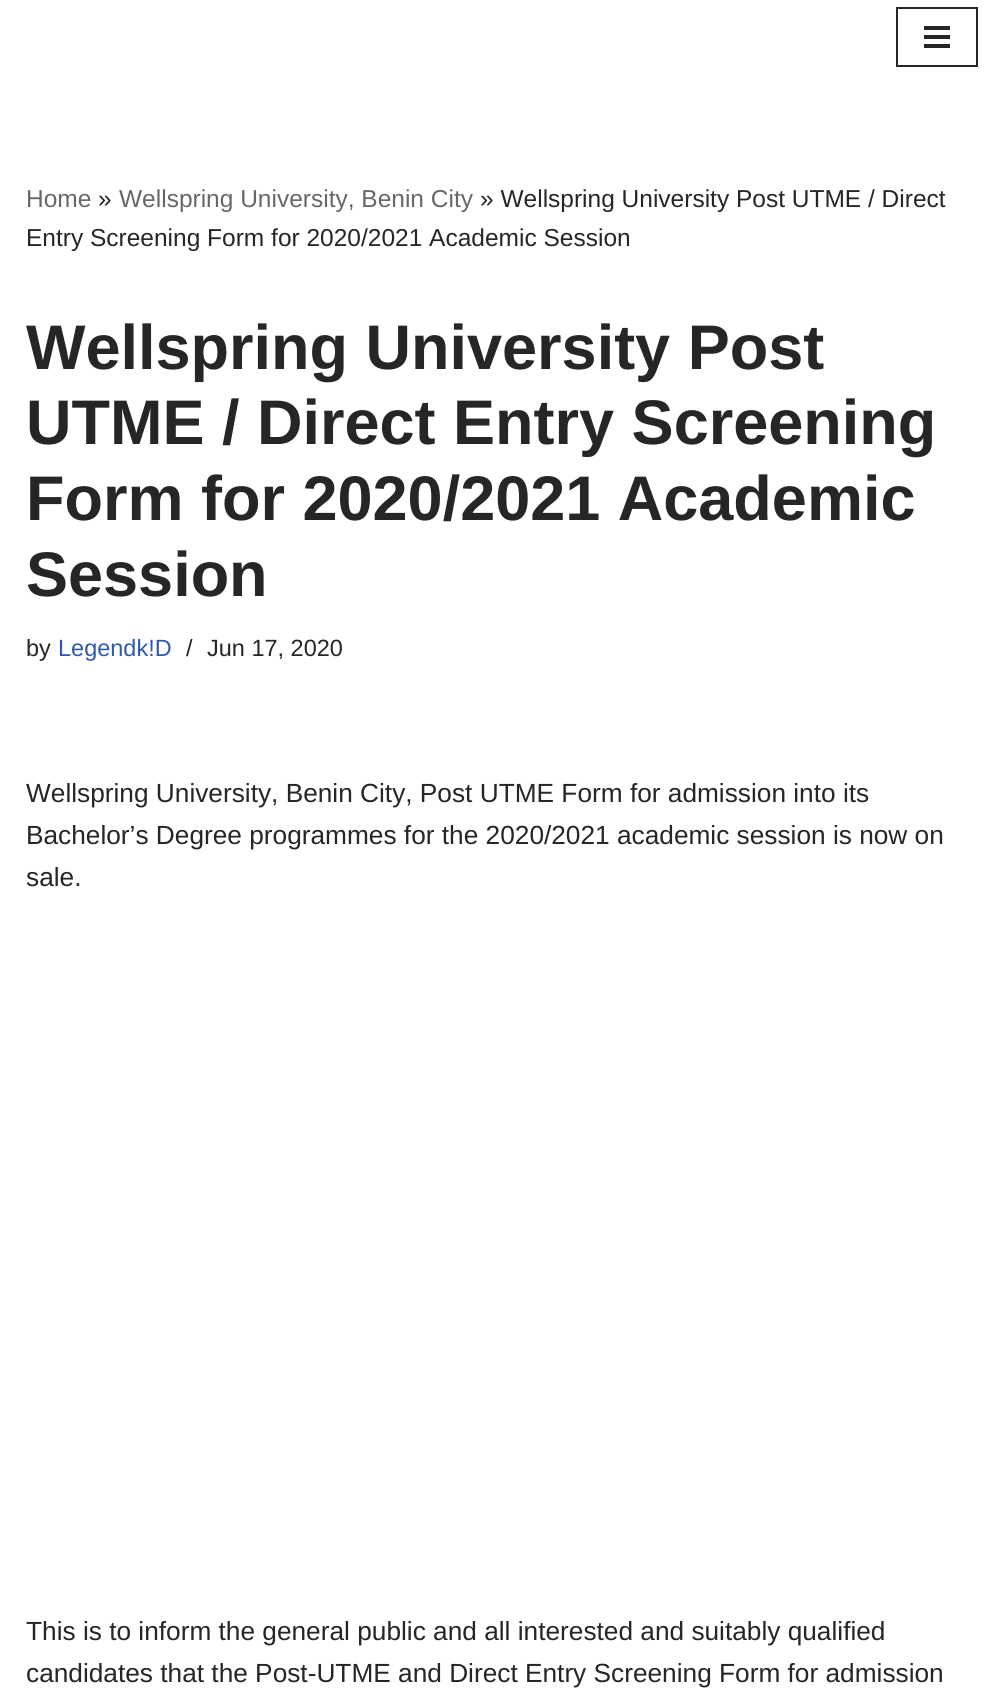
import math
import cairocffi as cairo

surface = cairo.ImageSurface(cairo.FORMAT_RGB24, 1004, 1696)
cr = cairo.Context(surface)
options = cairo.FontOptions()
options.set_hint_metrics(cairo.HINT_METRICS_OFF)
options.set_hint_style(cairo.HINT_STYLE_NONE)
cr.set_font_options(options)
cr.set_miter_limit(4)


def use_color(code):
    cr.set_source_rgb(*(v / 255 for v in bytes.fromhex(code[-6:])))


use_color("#ffffff")
cr.paint()
cr.rectangle(897, 8, 80, 58)
use_color("#272626")
cr.stroke()
cr.rectangle(924, 26, 26, 4)
cr.fill()
cr.rectangle(924, 35, 26, 4)
cr.fill()
cr.rectangle(924, 44, 26, 4)
cr.fill()
cr.select_font_face("Liberation Sans")
cr.set_font_size(24.5)
use_color("#676767")
cr.move_to(26, 207)
cr.show_text("Home")
use_color("#272626")
cr.move_to(98, 207)
cr.show_text("»")
use_color("#676767")
cr.move_to(119, 207)
cr.show_text("Wellspring University, Benin City")
use_color("#272626")
cr.move_to(480, 207)
cr.show_text("» Wellspring University Post UTME / Direct")
cr.move_to(26, 246)
cr.show_text("Entry Screening Form for 2020/2021 Academic Session")
cr.select_font_face("Liberation Sans", cairo.FONT_SLANT_NORMAL, cairo.FONT_WEIGHT_BOLD)
cr.set_font_size(63)
cr.move_to(26, 369)
cr.show_text("Wellspring University Post")
cr.move_to(26, 444)
cr.show_text("UTME / Direct Entry Screening")
cr.move_to(26, 520)
cr.show_text("Form for 2020/2021 Academic")
cr.move_to(26, 596)
cr.show_text("Session")
cr.select_font_face("Liberation Sans")
cr.set_font_size(23.5)
cr.move_to(26, 656)
cr.show_text("by")
use_color("#2f5aae")
cr.move_to(58, 656)
cr.show_text("Legendk!D")
use_color("#272626")
cr.move_to(186, 656)
cr.show_text("/")
cr.move_to(207, 656)
cr.show_text("Jun 17, 2020")
cr.set_font_size(26.25)
cr.move_to(26, 802)
cr.show_text("Wellspring University, Benin City, Post UTME Form for admission into its")
cr.move_to(26, 844)
cr.show_text("Bachelor’s Degree programmes for the 2020/2021 academic session is now on")
cr.move_to(26, 886)
cr.show_text("sale.")
cr.move_to(26, 1640)
cr.show_text("This is to inform the general public and all interested and suitably qualified")
cr.move_to(26, 1682)
cr.show_text("candidates that the Post-UTME and Direct Entry Screening Form for admission")
surface.write_to_png("result.png")
